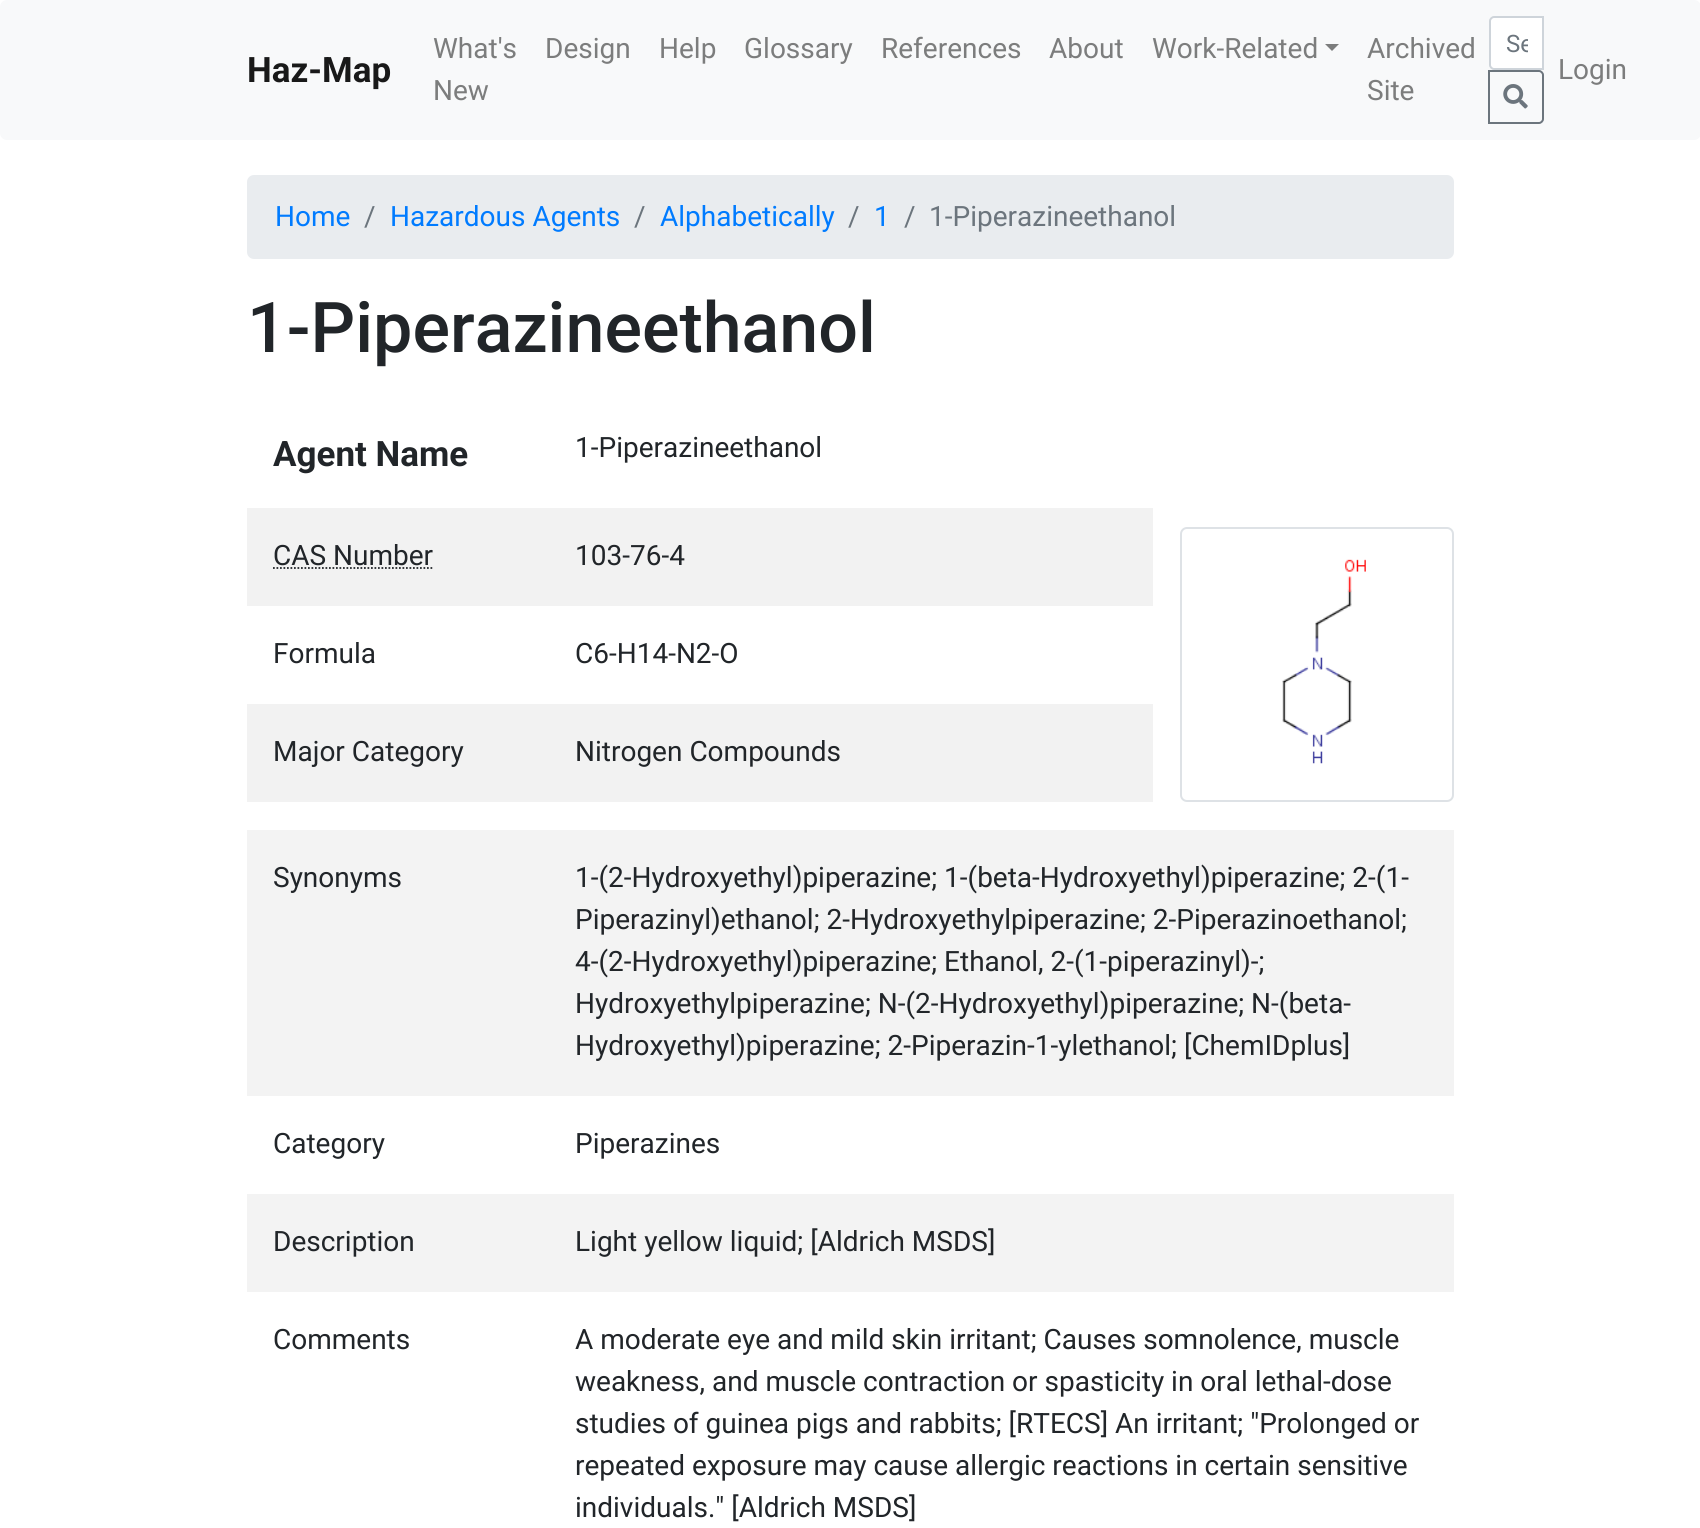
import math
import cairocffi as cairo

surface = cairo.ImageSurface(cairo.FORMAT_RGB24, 1700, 1528)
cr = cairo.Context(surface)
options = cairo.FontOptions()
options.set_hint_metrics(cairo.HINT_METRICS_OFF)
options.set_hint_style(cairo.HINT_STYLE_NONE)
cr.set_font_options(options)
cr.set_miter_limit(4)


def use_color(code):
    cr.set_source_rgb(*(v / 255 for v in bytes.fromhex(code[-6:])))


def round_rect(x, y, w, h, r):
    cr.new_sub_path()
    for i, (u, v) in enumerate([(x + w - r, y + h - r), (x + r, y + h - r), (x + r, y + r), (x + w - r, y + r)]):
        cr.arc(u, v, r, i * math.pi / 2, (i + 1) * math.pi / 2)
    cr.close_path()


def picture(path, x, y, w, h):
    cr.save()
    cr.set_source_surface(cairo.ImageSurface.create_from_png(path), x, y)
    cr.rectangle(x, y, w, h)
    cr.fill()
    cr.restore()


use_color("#ffffff")
cr.paint()
use_color("#f8f9fa")
round_rect(0, 0, 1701, 140, 7)
cr.fill()
cr.select_font_face("Roboto", cairo.FONT_SLANT_NORMAL, cairo.FONT_WEIGHT_BOLD)
cr.set_font_size(35)
use_color("#191919")
cr.move_to(247, 82)
cr.show_text("Haz-Map")
cr.select_font_face("Roboto")
cr.set_font_size(28)
use_color("#7c7d7d")
cr.move_to(433, 58)
cr.show_text("What's")
cr.move_to(433, 100)
cr.show_text("New")
cr.move_to(545, 58)
cr.show_text("Design")
cr.move_to(659, 58)
cr.show_text("Help")
cr.move_to(744, 58)
cr.show_text("Glossary")
cr.move_to(881, 58)
cr.show_text("References")
cr.move_to(1049, 58)
cr.show_text("About")
cr.move_to(1152, 58)
cr.show_text("Work-Related")
cr.new_path()
cr.move_to(1325, 44)
cr.line_to(1339, 44)
cr.line_to(1332, 51)
cr.close_path()
cr.fill()
cr.move_to(1367, 58)
cr.show_text("Archived")
cr.move_to(1367, 100)
cr.show_text("Site")
use_color("#ffffff")
cr.new_path()
cr.move_to(1494, 17)
cr.line_to(1543, 17)
cr.line_to(1543, 69)
cr.line_to(1494, 69)
cr.curve_to(1492, 69, 1490, 67, 1490, 65)
cr.line_to(1490, 21)
cr.curve_to(1490, 19, 1492, 17, 1494, 17)
cr.close_path()
cr.fill_preserve()
use_color("#ced4da")
cr.stroke()
cr.save()
cr.rectangle(1505, 30, 23, 28)
cr.clip()
cr.set_font_size(24)
use_color("#6c757d")
cr.move_to(1506, 52)
cr.show_text("Se")
cr.restore()
cr.new_path()
cr.move_to(1489, 71)
cr.line_to(1539, 71)
cr.curve_to(1541, 71, 1543, 73, 1543, 75)
cr.line_to(1543, 119)
cr.curve_to(1543, 121, 1541, 123, 1539, 123)
cr.line_to(1489, 123)
cr.close_path()
use_color("#6c757d")
cr.stroke()
picture("img1.png", 1503, 84, 25, 25)
use_color("#7c7d7d")
cr.move_to(1558, 79)
cr.show_text("Login")
use_color("#e9ecef")
round_rect(247, 175, 1207, 84, 7)
cr.fill()
use_color("#007bff")
cr.move_to(275, 226)
cr.show_text("Home")
use_color("#6c757d")
cr.move_to(364, 226)
cr.show_text("/")
use_color("#007bff")
cr.move_to(390, 226)
cr.show_text("Hazardous Agents")
use_color("#6c757d")
cr.move_to(634, 226)
cr.show_text("/")
use_color("#007bff")
cr.move_to(660, 226)
cr.show_text("Alphabetically")
use_color("#6c757d")
cr.move_to(848, 226)
cr.show_text("/")
use_color("#007bff")
cr.move_to(874, 226)
cr.show_text("1")
use_color("#6c757d")
cr.move_to(904, 226)
cr.show_text("/")
cr.move_to(929, 226)
cr.show_text("1-Piperazineethanol")
cr.select_font_face("Roboto Medium")
cr.set_font_size(70)
use_color("#212529")
cr.move_to(247, 352)
cr.show_text("1-Piperazineethanol")
cr.select_font_face("Roboto", cairo.FONT_SLANT_NORMAL, cairo.FONT_WEIGHT_BOLD)
cr.set_font_size(35)
cr.move_to(273, 466)
cr.show_text("Agent Name")
cr.select_font_face("Roboto")
cr.set_font_size(28)
cr.move_to(575, 457)
cr.show_text("1-Piperazineethanol")
use_color("#f2f2f2")
cr.rectangle(247, 508, 906, 98)
cr.fill()
use_color("#212529")
cr.move_to(273, 565)
cr.show_text("CAS Number")
cr.new_path()
cr.move_to(273, 568)
cr.line_to(433, 568)
cr.set_line_width(1.8)
cr.set_dash([1.75, 1.75])
cr.stroke()
cr.move_to(575, 565)
cr.show_text("103-76-4")
cr.move_to(273, 663)
cr.show_text("Formula")
cr.move_to(575, 663)
cr.show_text("C6-H14-N2-O")
use_color("#f2f2f2")
cr.rectangle(247, 704, 906, 98)
cr.fill()
use_color("#212529")
cr.move_to(273, 761)
cr.show_text("Major Category")
cr.move_to(575, 761)
cr.show_text("Nitrogen Compounds")
round_rect(1181, 528, 272, 273, 6)
use_color("#dee2e6")
cr.set_line_width(2)
cr.set_dash([])
cr.stroke()
picture("img2.png", 1282, 559, 84, 205)
use_color("#f3f3f3")
cr.rectangle(247, 830, 1207, 266)
cr.fill()
use_color("#212529")
cr.move_to(273, 887)
cr.show_text("Synonyms")
cr.move_to(575, 887)
cr.show_text("1-(2-Hydroxyethyl)piperazine; 1-(beta-Hydroxyethyl)piperazine; 2-(1-")
cr.move_to(575, 929)
cr.show_text("Piperazinyl)ethanol; 2-Hydroxyethylpiperazine; 2-Piperazinoethanol;")
cr.move_to(575, 971)
cr.show_text("4-(2-Hydroxyethyl)piperazine; Ethanol, 2-(1-piperazinyl)-;")
cr.move_to(575, 1013)
cr.show_text("Hydroxyethylpiperazine; N-(2-Hydroxyethyl)piperazine; N-(beta-")
cr.move_to(575, 1055)
cr.show_text("Hydroxyethyl)piperazine; 2-Piperazin-1-ylethanol; [ChemIDplus]")
cr.move_to(273, 1153)
cr.show_text("Category")
cr.move_to(575, 1153)
cr.show_text("Piperazines")
use_color("#f3f3f3")
cr.rectangle(247, 1194, 1207, 98)
cr.fill()
use_color("#212529")
cr.move_to(273, 1251)
cr.show_text("Description")
cr.move_to(575, 1251)
cr.show_text("Light yellow liquid; [Aldrich MSDS]")
cr.move_to(273, 1349)
cr.show_text("Comments")
cr.move_to(575, 1349)
cr.show_text("A moderate eye and mild skin irritant; Causes somnolence, muscle")
cr.move_to(575, 1391)
cr.show_text("weakness, and muscle contraction or spasticity in oral lethal-dose")
cr.move_to(575, 1433)
cr.show_text("studies of guinea pigs and rabbits; [RTECS] An irritant; \"Prolonged or")
cr.move_to(575, 1475)
cr.show_text("repeated exposure may cause allergic reactions in certain sensitive")
cr.move_to(575, 1517)
cr.show_text("individuals.\" [Aldrich MSDS]")
surface.write_to_png("result.png")
